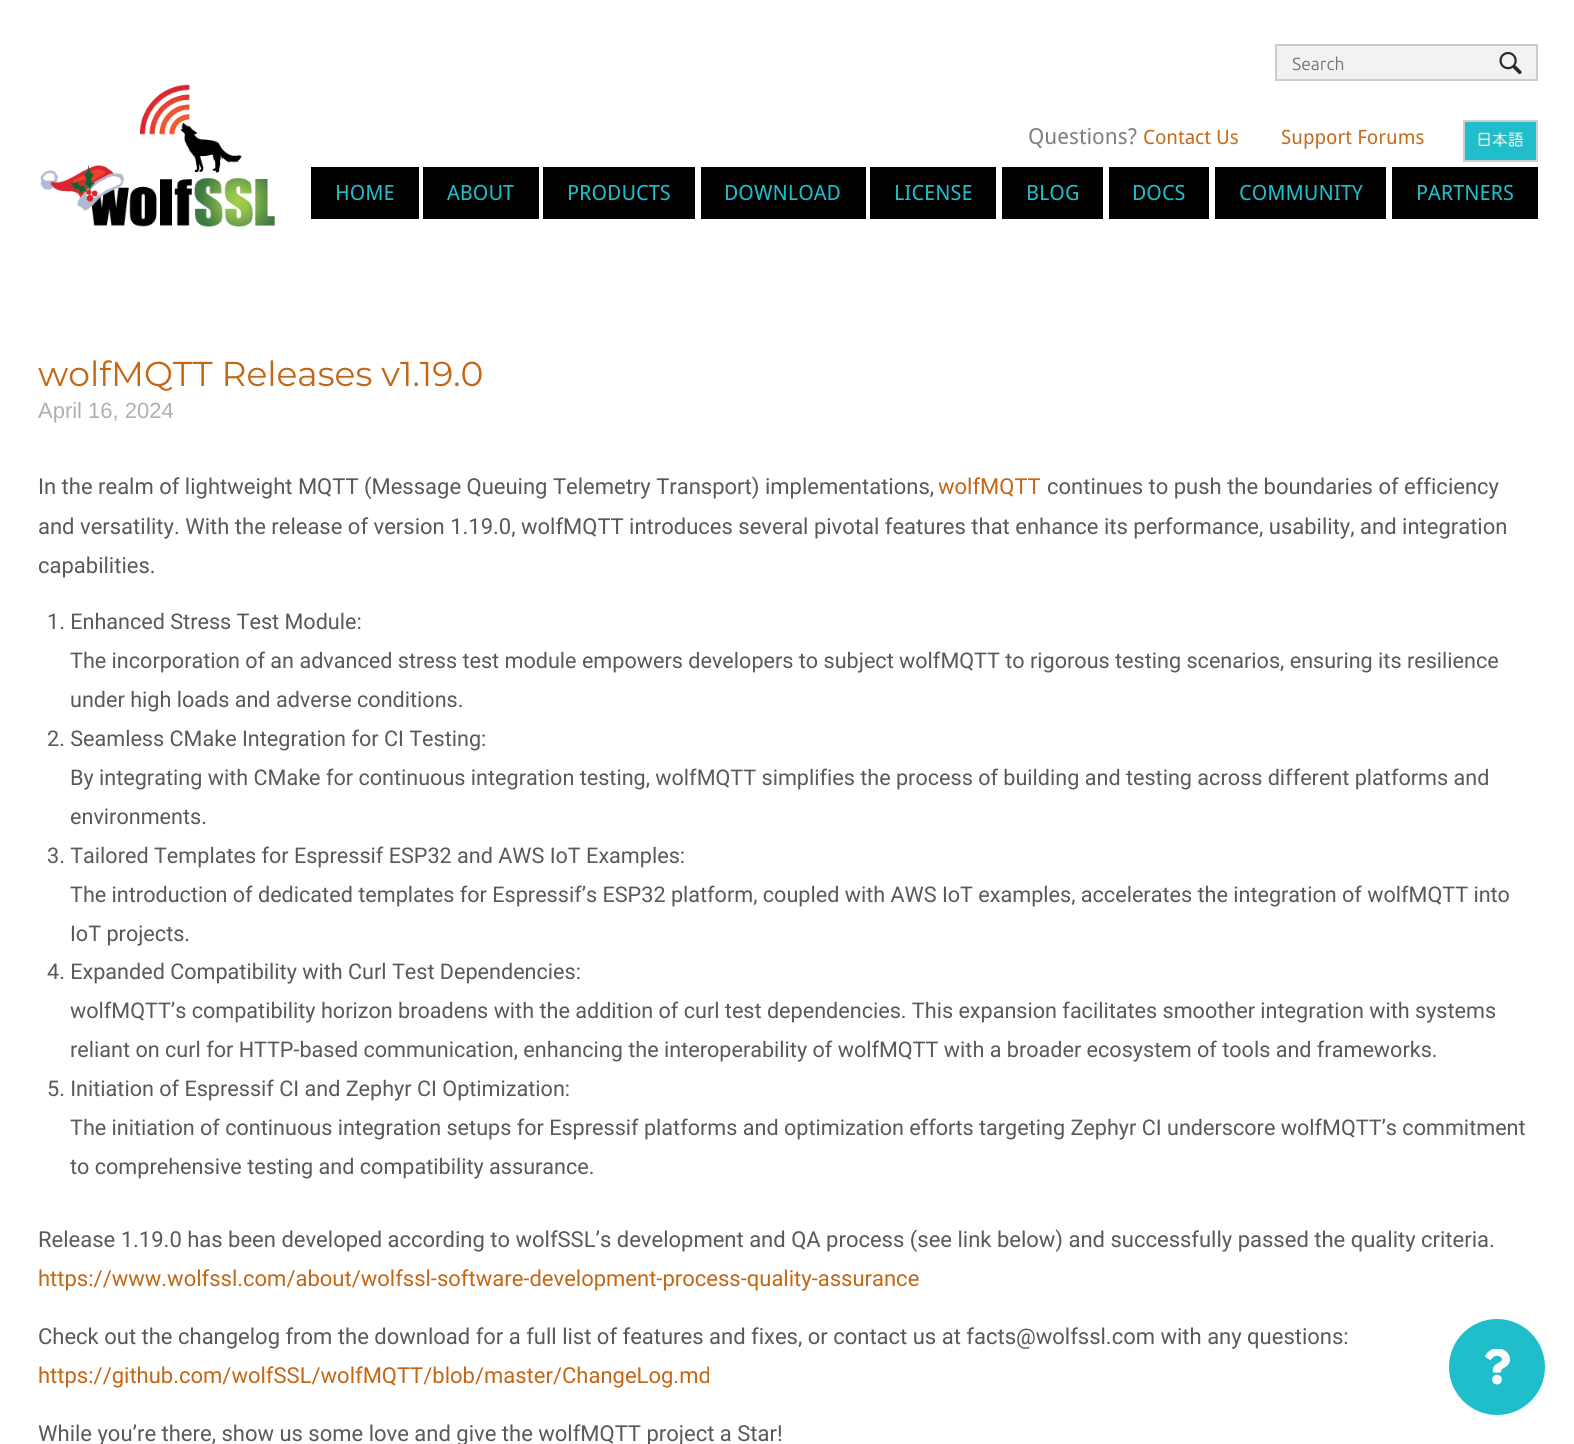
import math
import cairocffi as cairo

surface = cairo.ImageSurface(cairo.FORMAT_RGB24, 1574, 1444)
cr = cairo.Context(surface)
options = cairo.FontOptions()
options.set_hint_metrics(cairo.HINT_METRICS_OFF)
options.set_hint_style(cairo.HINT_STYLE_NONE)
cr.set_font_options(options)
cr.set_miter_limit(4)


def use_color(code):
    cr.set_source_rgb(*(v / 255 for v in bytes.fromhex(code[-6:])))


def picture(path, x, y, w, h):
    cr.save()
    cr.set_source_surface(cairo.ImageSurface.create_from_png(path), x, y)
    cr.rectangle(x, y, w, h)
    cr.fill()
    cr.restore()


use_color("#ffffff")
cr.paint()
picture("img1.png", 40, 84, 236, 143)
use_color("#f2f2f2")
cr.rectangle(1276, 45, 261, 35)
cr.fill_preserve()
use_color("#cccccc")
cr.stroke()
cr.select_font_face("Ubuntu")
cr.set_font_size(17.5)
use_color("#757575")
cr.move_to(1292, 70)
cr.show_text("Search")
picture("img2.png", 1499, 51, 23, 23)
use_color("#000000")
cr.rectangle(311, 167, 108, 52)
cr.fill()
cr.select_font_face("Droid Sans")
cr.set_font_size(21)
use_color("#1fbeca")
cr.move_to(335, 200)
cr.show_text("HOME")
use_color("#000000")
cr.rectangle(423, 167, 116, 52)
cr.fill()
use_color("#1fbeca")
cr.move_to(447, 200)
cr.show_text("ABOUT")
use_color("#000000")
cr.rectangle(543, 167, 152, 52)
cr.fill()
use_color("#1fbeca")
cr.move_to(567, 200)
cr.show_text("PRODUCTS")
use_color("#000000")
cr.rectangle(701, 167, 165, 52)
cr.fill()
use_color("#1fbeca")
cr.move_to(724, 200)
cr.show_text("DOWNLOAD")
use_color("#000000")
cr.rectangle(870, 167, 126, 52)
cr.fill()
use_color("#1fbeca")
cr.move_to(894, 200)
cr.show_text("LICENSE")
use_color("#000000")
cr.rectangle(1002, 167, 101, 52)
cr.fill()
use_color("#1fbeca")
cr.move_to(1026, 200)
cr.show_text("BLOG")
use_color("#000000")
cr.rectangle(1109, 167, 100, 52)
cr.fill()
use_color("#1fbeca")
cr.move_to(1132, 200)
cr.show_text("DOCS")
use_color("#000000")
cr.rectangle(1215, 167, 171, 52)
cr.fill()
use_color("#1fbeca")
cr.move_to(1239, 200)
cr.show_text("COMMUNITY")
use_color("#000000")
cr.rectangle(1392, 167, 146, 52)
cr.fill()
use_color("#1fbeca")
cr.move_to(1416, 200)
cr.show_text("PARTNERS")
cr.set_font_size(22)
use_color("#808080")
cr.move_to(1028, 144)
cr.show_text("Questions?")
cr.set_font_size(19.75)
use_color("#c56b1c")
cr.move_to(1143, 144)
cr.show_text("Contact Us")
cr.move_to(1281, 144)
cr.show_text("Support Forums")
use_color("#1fbeca")
cr.rectangle(1464, 121, 73, 40)
cr.fill_preserve()
use_color("#cfcfcf")
cr.stroke()
picture("img3.png", 1478, 132, 46, 15)
cr.select_font_face("Montserrat Thin")
cr.set_font_size(34.5)
use_color("#c46715")
cr.move_to(38, 386)
cr.show_text("wolfMQTT Releases v1.19.0")
cr.select_font_face("Liberation Sans")
cr.set_font_size(22)
use_color("#b0b0b0")
cr.move_to(38, 418)
cr.show_text("April 16, 2024")
cr.select_font_face("Roboto")
use_color("#595959")
cr.move_to(38, 494)
cr.show_text("In the realm of lightweight MQTT (Message Queuing Telemetry Transport) implementations,")
use_color("#c46715")
cr.move_to(938, 494)
cr.show_text("wolfMQTT")
use_color("#595959")
cr.move_to(1047, 494)
cr.show_text("continues to push the boundaries of efficiency")
cr.move_to(38, 534)
cr.show_text("and versatility. With the release of version 1.19.0, wolfMQTT introduces several pivotal features that enhance its performance, usability, and integration")
cr.move_to(38, 573)
cr.show_text("capabilities.")
cr.set_font_size(21.6)
cr.move_to(47, 629)
cr.show_text("1. Enhanced Stress Test Module:")
cr.move_to(70, 668)
cr.show_text("The incorporation of an advanced stress test module empowers developers to subject wolfMQTT to rigorous testing scenarios, ensuring its resilience")
cr.move_to(70, 707)
cr.show_text("under high loads and adverse conditions.")
cr.move_to(47, 746)
cr.show_text("2. Seamless CMake Integration for CI Testing:")
cr.move_to(70, 785)
cr.show_text("By integrating with CMake for continuous integration testing, wolfMQTT simplifies the process of building and testing across different platforms and")
cr.move_to(70, 824)
cr.show_text("environments.")
cr.move_to(47, 863)
cr.show_text("3. Tailored Templates for Espressif ESP32 and AWS IoT Examples:")
cr.move_to(70, 902)
cr.show_text("The introduction of dedicated templates for Espressif’s ESP32 platform, coupled with AWS IoT examples, accelerates the integration of wolfMQTT into")
cr.move_to(70, 941)
cr.show_text("IoT projects.")
cr.move_to(47, 979)
cr.show_text("4. Expanded Compatibility with Curl Test Dependencies:")
cr.move_to(70, 1018)
cr.show_text("wolfMQTT’s compatibility horizon broadens with the addition of curl test dependencies. This expansion facilitates smoother integration with systems")
cr.move_to(70, 1057)
cr.show_text("reliant on curl for HTTP-based communication, enhancing the interoperability of wolfMQTT with a broader ecosystem of tools and frameworks.")
cr.move_to(47, 1096)
cr.show_text("5. Initiation of Espressif CI and Zephyr CI Optimization:")
cr.move_to(70, 1135)
cr.show_text("The initiation of continuous integration setups for Espressif platforms and optimization efforts targeting Zephyr CI underscore wolfMQTT’s commitment")
cr.move_to(70, 1174)
cr.show_text("to comprehensive testing and compatibility assurance.")
cr.set_font_size(22)
cr.move_to(38, 1247)
cr.show_text("Release 1.19.0 has been developed according to wolfSSL’s development and QA process (see link below) and successfully passed the quality criteria.")
use_color("#c46715")
cr.move_to(38, 1286)
cr.show_text("https://www.wolfssl.com/about/wolfssl-software-development-process-quality-assurance")
use_color("#595959")
cr.move_to(38, 1344)
cr.show_text("Check out the changelog from the download for a full list of features and fixes, or contact us at facts@wolfssl.com with any questions:")
use_color("#c46715")
cr.move_to(38, 1383)
cr.show_text("https://github.com/wolfSSL/wolfMQTT/blob/master/ChangeLog.md")
use_color("#595959")
cr.move_to(38, 1441)
cr.show_text("While you’re there, show us some love and give the wolfMQTT project a Star!")
use_color("#20beca")
cr.new_path()
cr.arc(1497, 1367, 48, 0, 2 * math.pi)
cr.fill()
picture("img4.png", 1485, 1349, 25, 36)
surface.write_to_png("result.png")
